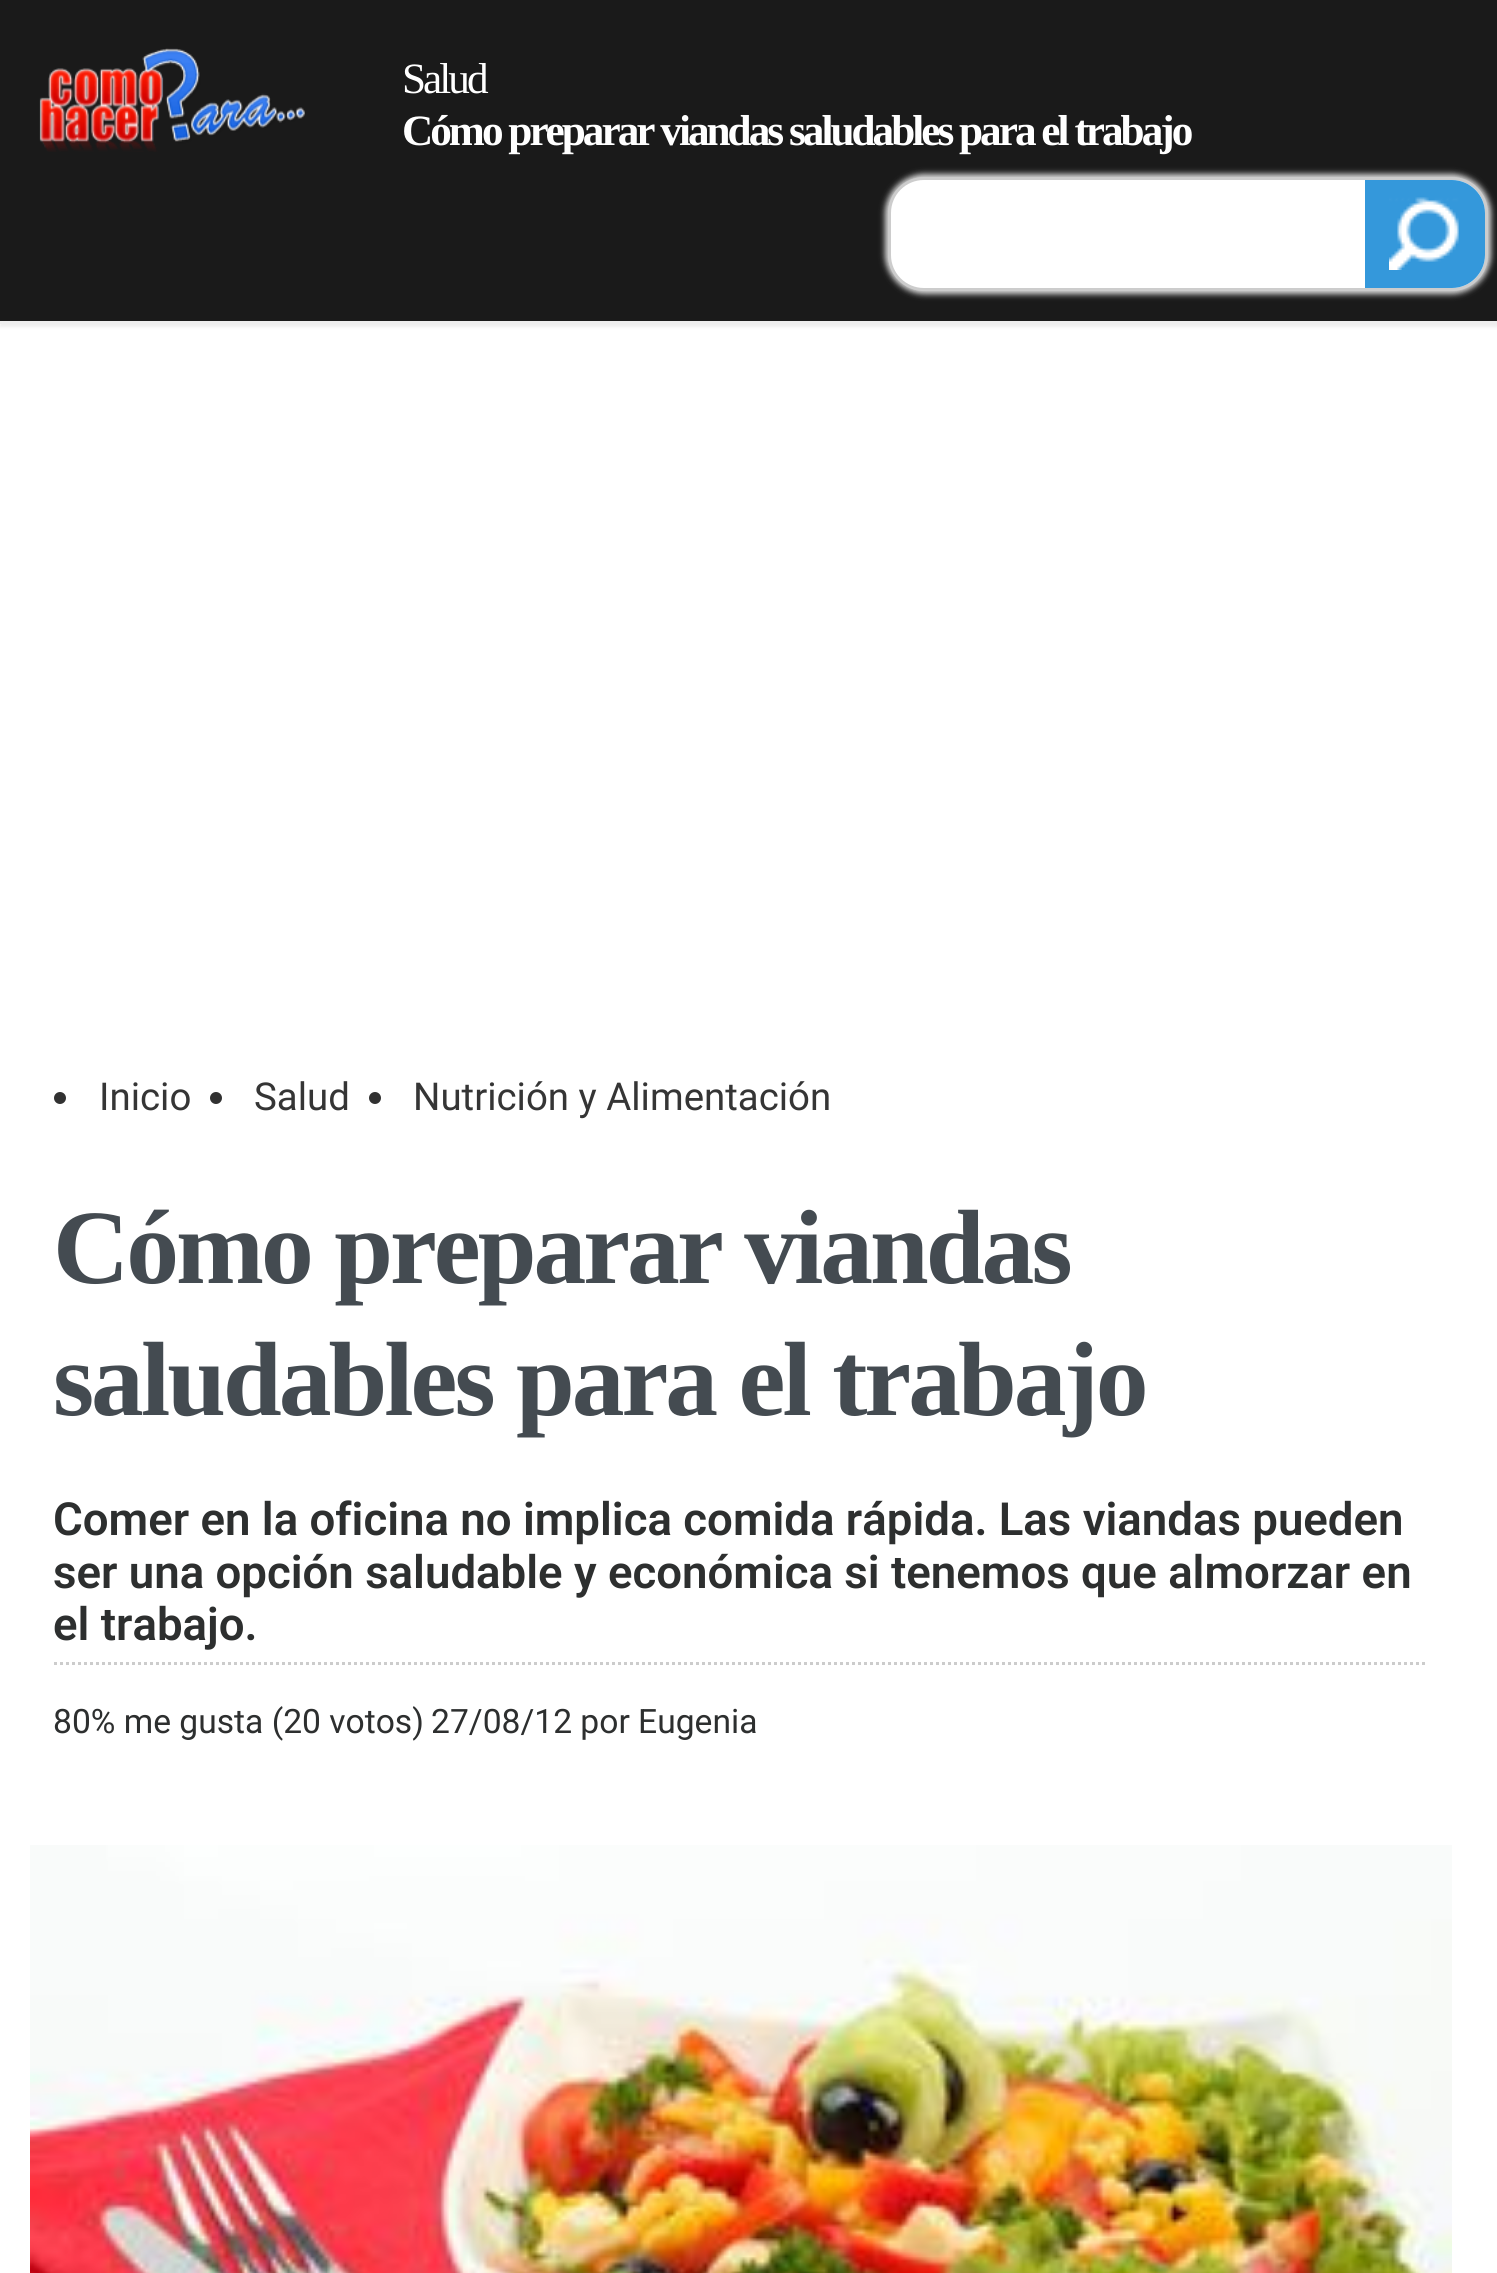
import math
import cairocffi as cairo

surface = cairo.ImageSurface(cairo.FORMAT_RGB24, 1497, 2273)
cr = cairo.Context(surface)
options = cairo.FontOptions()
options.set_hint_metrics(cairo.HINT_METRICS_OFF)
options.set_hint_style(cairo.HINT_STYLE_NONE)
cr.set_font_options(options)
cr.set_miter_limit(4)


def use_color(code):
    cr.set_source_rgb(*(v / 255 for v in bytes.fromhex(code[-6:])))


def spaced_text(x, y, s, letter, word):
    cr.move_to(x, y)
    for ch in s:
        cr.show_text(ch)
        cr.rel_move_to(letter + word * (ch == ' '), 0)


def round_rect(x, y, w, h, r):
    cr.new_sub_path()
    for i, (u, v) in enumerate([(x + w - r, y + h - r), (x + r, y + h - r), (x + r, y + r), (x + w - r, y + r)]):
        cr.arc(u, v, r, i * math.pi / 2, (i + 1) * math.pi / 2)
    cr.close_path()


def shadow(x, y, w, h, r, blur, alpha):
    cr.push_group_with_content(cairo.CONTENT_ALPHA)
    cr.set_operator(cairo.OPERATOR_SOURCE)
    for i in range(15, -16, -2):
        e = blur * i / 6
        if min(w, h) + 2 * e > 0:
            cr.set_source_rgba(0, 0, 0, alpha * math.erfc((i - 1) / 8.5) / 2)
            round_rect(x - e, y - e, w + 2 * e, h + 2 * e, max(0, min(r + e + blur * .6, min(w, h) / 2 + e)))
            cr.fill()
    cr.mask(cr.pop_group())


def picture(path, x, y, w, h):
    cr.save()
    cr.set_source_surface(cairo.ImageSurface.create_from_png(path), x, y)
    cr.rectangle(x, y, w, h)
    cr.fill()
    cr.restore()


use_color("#ffffff")
cr.paint()
use_color("#eeeeee")
shadow(0, -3, 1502, 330, 0, 1.5, 1)
use_color("#1a1a1a")
cr.rectangle(0, 0, 1497, 321)
cr.fill()
use_color("#eeeeee")
cr.rectangle(0, 321, 2, 3)
cr.fill()
picture("img1.png", 39, 48, 266, 104)
cr.select_font_face("Liberation Serif")
cr.set_font_size(43.25)
use_color("#ffffff")
spaced_text(402, 93, "Salud", -3, 0)
cr.select_font_face("Liberation Serif", cairo.FONT_SLANT_NORMAL, cairo.FONT_WEIGHT_BOLD)
spaced_text(402, 145, "Cómo preparar viandas saludables para el trabajo", -3, 0)
use_color("#dddddd")
shadow(885, 174, 606, 120, 39, 3, 1)
use_color("#ffffff")
round_rect(889.5, 178.5, 597, 111, 34.5)
cr.fill_preserve()
use_color("#cccccc")
cr.set_line_width(3)
cr.stroke()
use_color("#3498db")
cr.new_path()
cr.move_to(1365, 180)
cr.line_to(1452, 180)
cr.curve_to(1470, 180, 1485, 195, 1485, 213)
cr.line_to(1485, 255)
cr.curve_to(1485, 273, 1470, 288, 1452, 288)
cr.line_to(1365, 288)
cr.close_path()
cr.fill()
picture("img2.png", 1389, 197, 70, 73)
use_color("#313131")
cr.arc(60, 1098, 6, 0, 2 * math.pi)
cr.fill()
cr.select_font_face("Roboto")
cr.set_font_size(38.4)
use_color("#353535")
cr.move_to(99, 1110)
cr.show_text("Inicio")
use_color("#313131")
cr.new_path()
cr.arc(216, 1098, 6, 0, 2 * math.pi)
cr.fill()
use_color("#353535")
cr.move_to(254, 1110)
cr.show_text("Salud")
use_color("#313131")
cr.new_path()
cr.arc(375, 1098, 6, 0, 2 * math.pi)
cr.fill()
use_color("#353535")
cr.move_to(413, 1110)
cr.show_text("Nutrición y Alimentación")
cr.select_font_face("Liberation Serif", cairo.FONT_SLANT_NORMAL, cairo.FONT_WEIGHT_BOLD)
cr.set_font_size(105.6)
use_color("#444b51")
spaced_text(53, 1283, "Cómo preparar viandas", -3, 0)
spaced_text(53, 1415, "saludables para el trabajo", -3, 0)
cr.new_path()
cr.move_to(54, 1663.5)
cr.line_to(1428, 1663.5)
use_color("#cccccc")
cr.set_dash([3, 3])
cr.stroke()
cr.select_font_face("Roboto SemiBold")
cr.set_font_size(45.6)
use_color("#2d2f2f")
cr.move_to(53, 1535)
cr.show_text("Comer en la oficina no implica comida rápida. Las viandas pueden")
cr.move_to(53, 1588)
cr.show_text("ser una opción saludable y económica si tenemos que almorzar en")
cr.move_to(53, 1640)
cr.show_text("el trabajo.")
cr.select_font_face("Roboto")
cr.set_font_size(33.6)
cr.move_to(53, 1733)
cr.show_text("80% me gusta (20 votos)")
cr.move_to(431, 1733)
cr.show_text("27/08/12 por Eugenia")
picture("img3.png", 30, 1845, 1422, 428)
surface.write_to_png("result.png")
